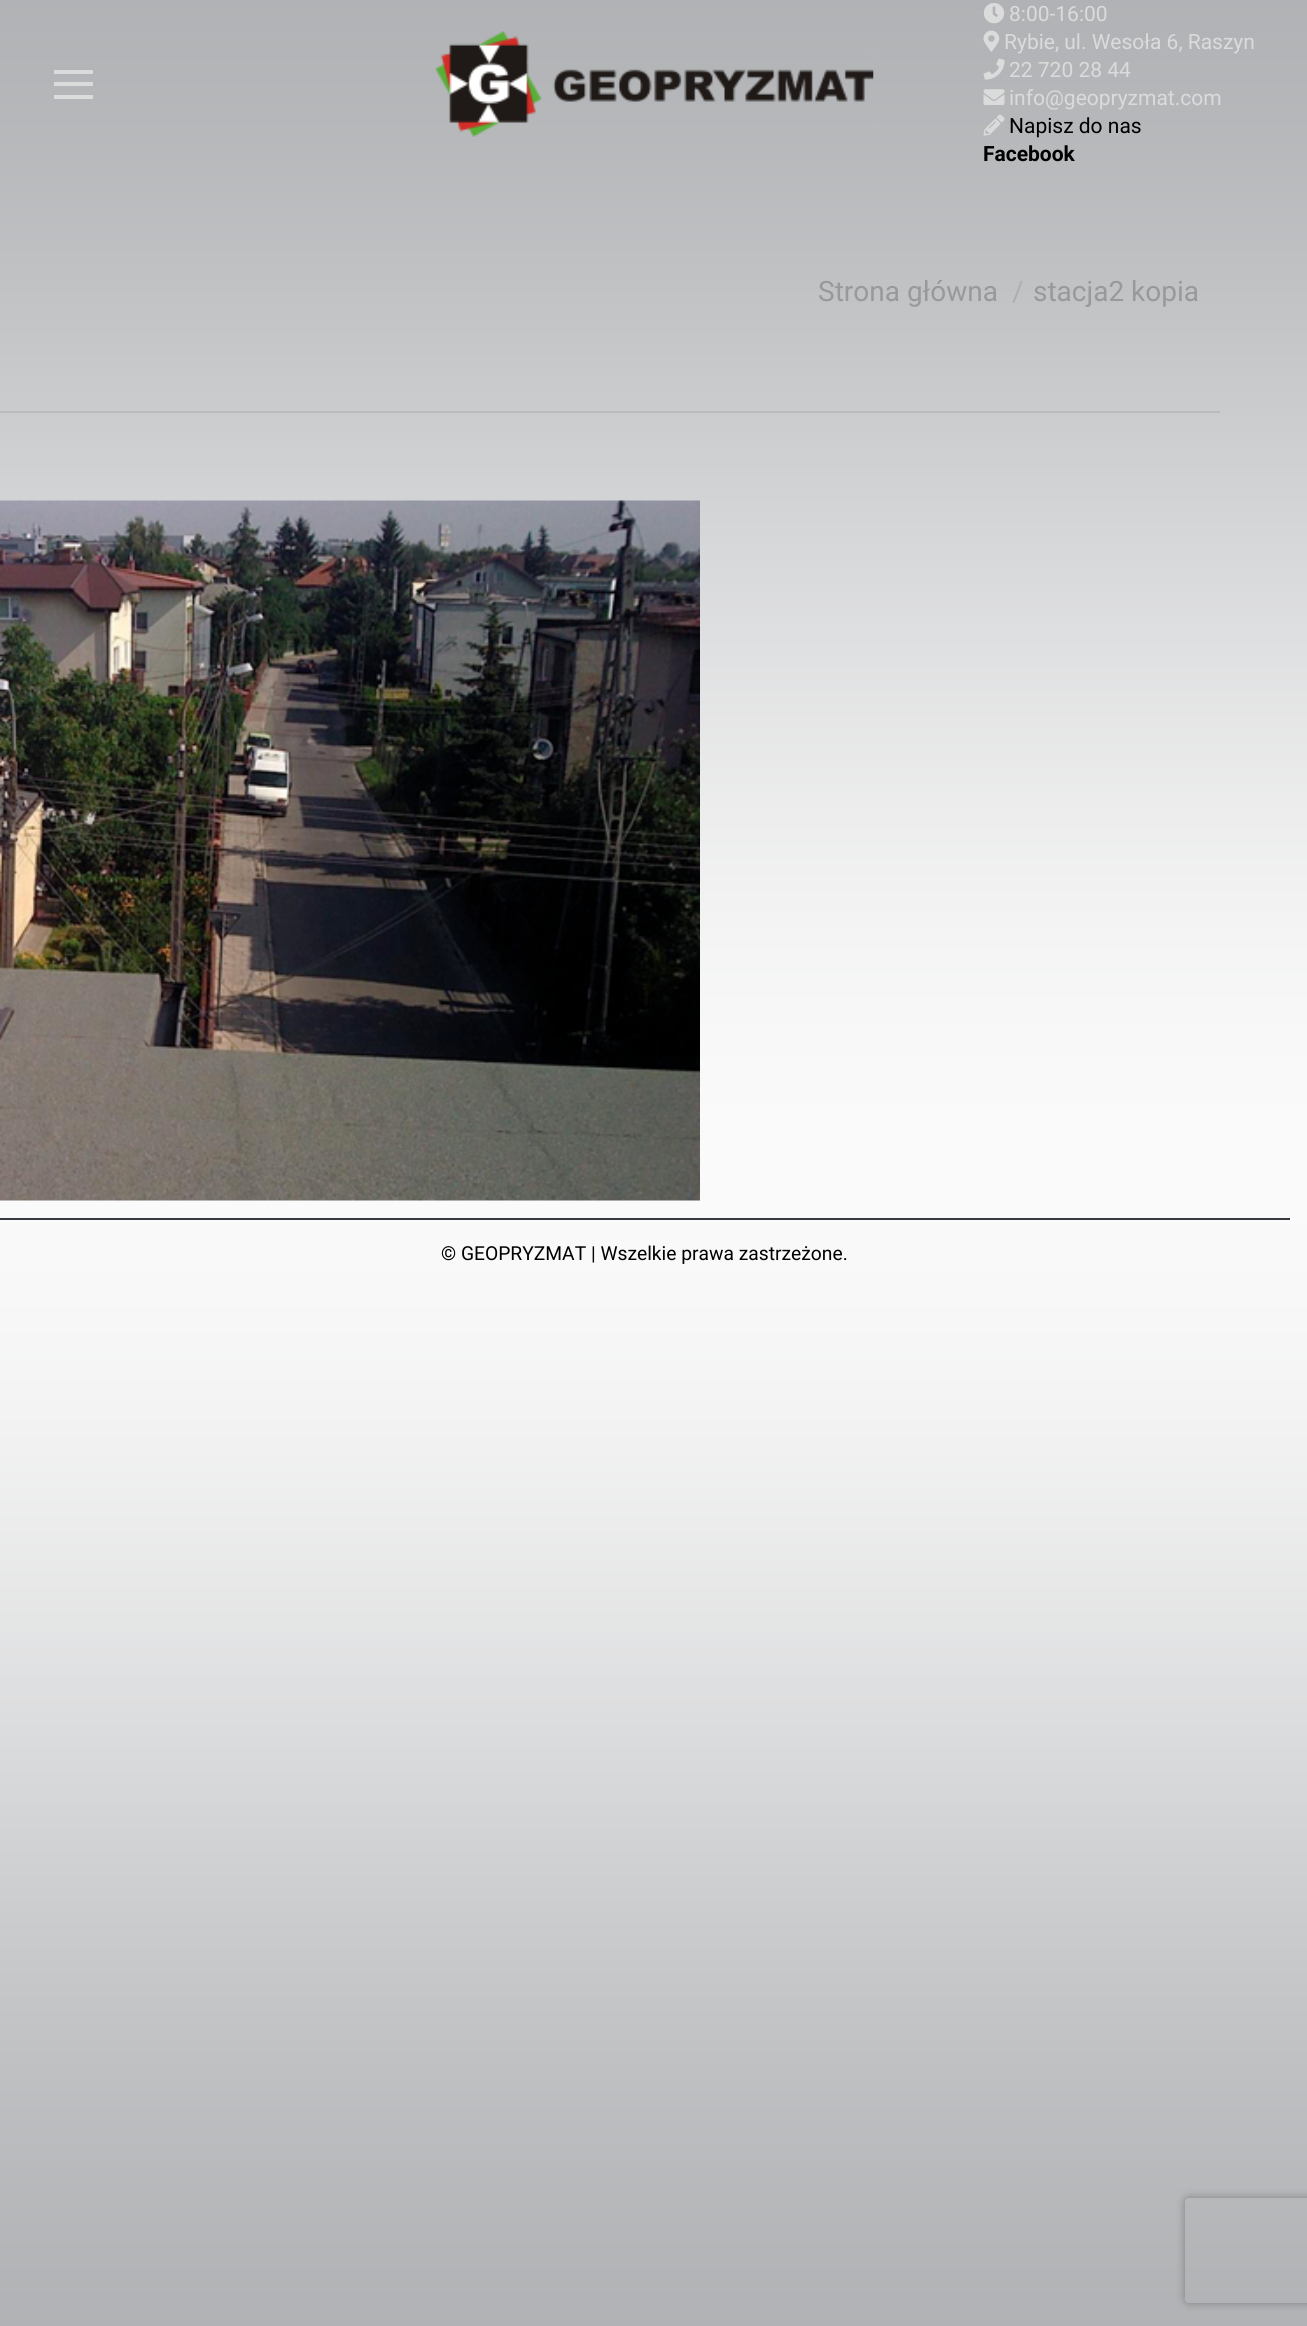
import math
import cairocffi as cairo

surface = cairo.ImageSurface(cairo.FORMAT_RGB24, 1307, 2326)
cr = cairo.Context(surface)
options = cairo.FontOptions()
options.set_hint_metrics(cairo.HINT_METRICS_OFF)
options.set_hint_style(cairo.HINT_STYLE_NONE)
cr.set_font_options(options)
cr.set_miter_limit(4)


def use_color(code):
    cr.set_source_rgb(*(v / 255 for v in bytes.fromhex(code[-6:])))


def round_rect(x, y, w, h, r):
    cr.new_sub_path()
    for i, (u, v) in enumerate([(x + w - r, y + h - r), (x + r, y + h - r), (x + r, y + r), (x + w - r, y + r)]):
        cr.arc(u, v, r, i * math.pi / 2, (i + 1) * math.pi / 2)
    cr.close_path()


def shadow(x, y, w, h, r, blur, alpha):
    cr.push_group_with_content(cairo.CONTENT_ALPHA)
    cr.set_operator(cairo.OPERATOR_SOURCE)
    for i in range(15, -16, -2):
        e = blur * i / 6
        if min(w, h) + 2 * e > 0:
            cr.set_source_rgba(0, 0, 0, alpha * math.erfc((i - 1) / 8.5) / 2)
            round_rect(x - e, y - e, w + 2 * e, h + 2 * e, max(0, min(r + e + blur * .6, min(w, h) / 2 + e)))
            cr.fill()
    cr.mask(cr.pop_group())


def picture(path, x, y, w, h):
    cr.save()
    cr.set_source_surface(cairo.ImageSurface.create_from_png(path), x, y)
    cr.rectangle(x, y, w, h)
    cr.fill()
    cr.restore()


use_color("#ffffff")
cr.paint()
picture("img1.png", 0, 0, 1307, 2326)
use_color("#dbdbdb")
cr.rectangle(54, 70, 39, 4)
cr.fill()
cr.rectangle(54, 82, 39, 4)
cr.fill()
cr.rectangle(54, 95, 39, 4)
cr.fill()
picture("img2.png", 435, 31, 439, 106)
picture("img3.png", 983, 3, 22, 21)
cr.select_font_face("Roboto")
cr.set_font_size(21)
cr.move_to(1009, 21)
cr.show_text("8:00-16:00")
picture("img4.png", 983, 30, 17, 22)
cr.move_to(1004, 49)
cr.show_text("Rybie, ul. Wesoła 6, Raszyn")
picture("img5.png", 983, 58, 22, 22)
cr.move_to(1009, 77)
cr.show_text("22 720 28 44")
picture("img6.png", 983, 89, 22, 16)
cr.move_to(1009, 105)
cr.show_text("info@geopryzmat.com")
picture("img7.png", 983, 114, 22, 22)
use_color("#000000")
cr.move_to(1009, 133)
cr.show_text("Napisz do nas")
cr.select_font_face("Roboto", cairo.FONT_SLANT_NORMAL, cairo.FONT_WEIGHT_BOLD)
cr.move_to(983, 161)
cr.show_text("Facebook")
cr.select_font_face("Roboto")
cr.set_font_size(28)
use_color("#999999")
cr.move_to(818, 301)
cr.show_text("Strona główna")
use_color("#adaeaf")
cr.move_to(1012, 301)
cr.show_text("/")
use_color("#999999")
cr.move_to(1033, 301)
cr.show_text("stacja2 kopia")
use_color("#babbbd")
cr.rectangle(0, 411, 1220, 2)
cr.fill()
picture("img8.png", 0, 500, 700, 701)
use_color("#373a41")
cr.rectangle(0, 1218, 1290, 2)
cr.fill()
cr.set_font_size(19.25)
use_color("#000000")
cr.move_to(441, 1260)
cr.show_text("© GEOPRYZMAT | Wszelkie prawa zastrzeżone.")
cr.save()
cr.set_fill_rule(cairo.FILL_RULE_EVEN_ODD)
cr.new_path()
cr.move_to(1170, 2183)
cr.line_to(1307, 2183)
cr.line_to(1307, 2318)
cr.line_to(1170, 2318)
cr.close_path()
cr.move_to(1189, 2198)
cr.line_to(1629, 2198)
cr.curve_to(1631, 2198, 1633, 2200, 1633, 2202)
cr.line_to(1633, 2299)
cr.curve_to(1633, 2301, 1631, 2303, 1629, 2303)
cr.line_to(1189, 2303)
cr.curve_to(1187, 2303, 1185, 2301, 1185, 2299)
cr.line_to(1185, 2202)
cr.curve_to(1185, 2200, 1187, 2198, 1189, 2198)
cr.close_path()
cr.clip()
use_color("#808080")
shadow(1185, 2198, 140, 105, 4, 4.5, 1)
cr.restore()
surface.write_to_png("result.png")
